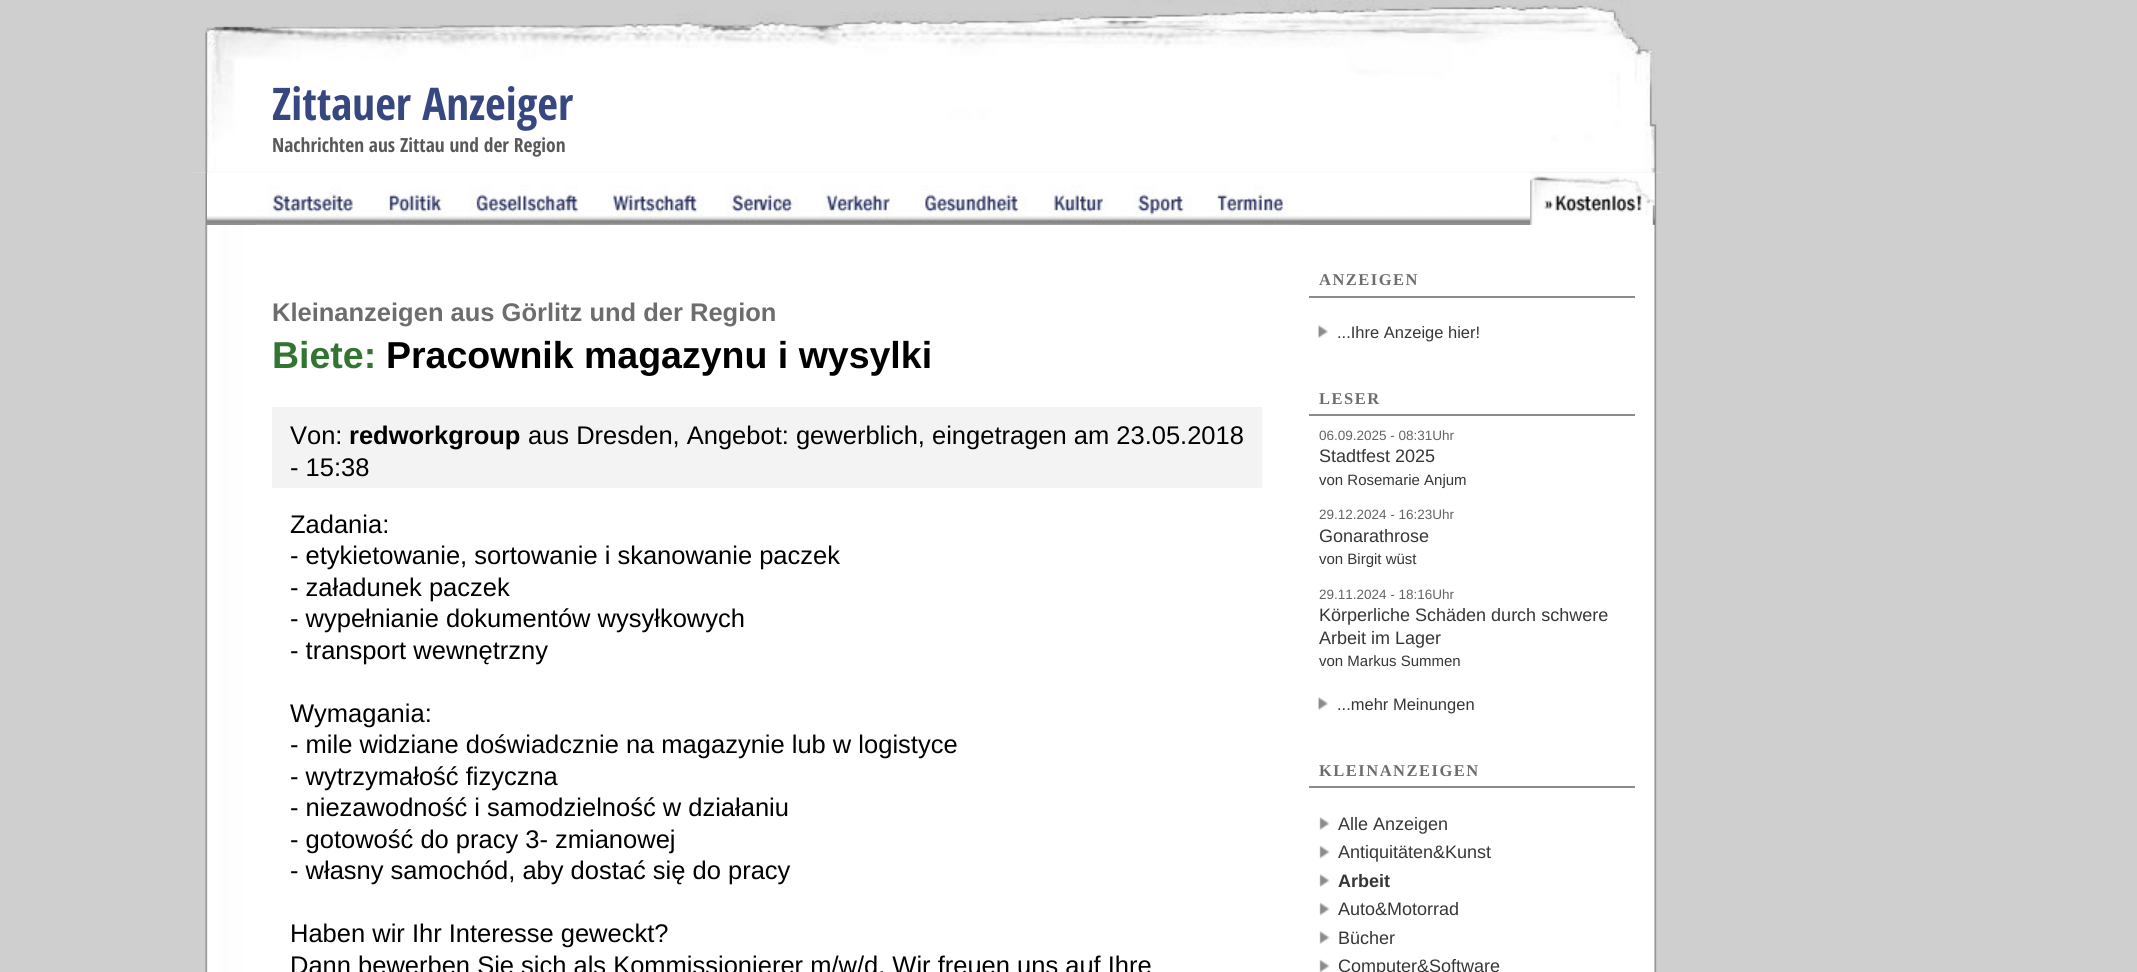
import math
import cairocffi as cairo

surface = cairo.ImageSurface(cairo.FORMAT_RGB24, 2137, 972)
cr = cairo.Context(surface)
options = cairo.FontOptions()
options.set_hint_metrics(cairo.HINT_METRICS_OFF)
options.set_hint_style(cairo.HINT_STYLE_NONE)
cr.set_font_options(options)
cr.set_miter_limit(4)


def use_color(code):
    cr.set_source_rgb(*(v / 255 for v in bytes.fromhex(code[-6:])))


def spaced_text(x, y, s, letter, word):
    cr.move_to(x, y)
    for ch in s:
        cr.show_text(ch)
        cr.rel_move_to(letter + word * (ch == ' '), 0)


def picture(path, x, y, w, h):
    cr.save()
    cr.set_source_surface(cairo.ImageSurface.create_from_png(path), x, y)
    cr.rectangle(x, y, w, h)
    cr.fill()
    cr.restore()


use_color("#cfcfcf")
cr.paint()
picture("img1.png", 192, 172, 1470, 800)
picture("img3.png", 192, 172, 1470, 53)
picture("img4.png", 192, 172, 15, 53)
picture("img15.png", 1654, 172, 8, 53)
picture("img16.png", 1530, 172, 125, 53)
picture("img2.png", 192, 0, 1470, 173)
cr.select_font_face("Open Sans Condensed", cairo.FONT_SLANT_NORMAL, cairo.FONT_WEIGHT_BOLD)
cr.set_font_size(45)
use_color("#374880")
cr.move_to(272, 120)
cr.show_text("Zittauer Anzeiger")
cr.set_font_size(19.5)
use_color("#595959")
cr.move_to(272, 152)
cr.show_text("Nachrichten aus Zittau und der Region")
picture("img5.png", 256, 185, 118, 40)
picture("img6.png", 374, 189, 84, 36)
picture("img7.png", 458, 185, 138, 40)
picture("img8.png", 596, 185, 118, 40)
picture("img9.png", 714, 185, 96, 40)
picture("img10.png", 810, 185, 98, 40)
picture("img11.png", 908, 185, 129, 40)
picture("img12.png", 1037, 185, 84, 40)
picture("img13.png", 1121, 186, 84, 39)
picture("img14.png", 1205, 185, 96, 40)
cr.select_font_face("Liberation Sans", cairo.FONT_SLANT_NORMAL, cairo.FONT_WEIGHT_BOLD)
cr.set_font_size(25.5)
use_color("#6d6d6d")
cr.move_to(272, 321)
cr.show_text("Kleinanzeigen aus Görlitz und der Region")
cr.set_font_size(37.5)
use_color("#327533")
cr.move_to(272, 368)
cr.show_text("Biete:")
use_color("#000000")
cr.move_to(386, 368)
cr.show_text("Pracownik magazynu i wysylki")
use_color("#f3f3f3")
cr.rectangle(272, 407, 990, 81)
cr.fill()
cr.select_font_face("Liberation Sans")
cr.set_font_size(25.5)
use_color("#000000")
cr.move_to(290, 444)
cr.show_text("Von:")
cr.select_font_face("Liberation Sans", cairo.FONT_SLANT_NORMAL, cairo.FONT_WEIGHT_BOLD)
cr.move_to(349, 444)
cr.show_text("redworkgroup")
cr.select_font_face("Liberation Sans")
cr.move_to(528, 444)
cr.show_text("aus Dresden, Angebot: gewerblich, eingetragen am 23.05.2018")
cr.move_to(290, 476)
cr.show_text("- 15:38")
cr.move_to(290, 533)
cr.show_text("Zadania:")
cr.move_to(290, 564)
cr.show_text("- etykietowanie, sortowanie i skanowanie paczek")
cr.move_to(290, 596)
cr.show_text("- załadunek paczek")
cr.move_to(290, 627)
cr.show_text("- wypełnianie dokumentów wysyłkowych")
cr.move_to(290, 659)
cr.show_text("- transport wewnętrzny")
cr.move_to(290, 722)
cr.show_text("Wymagania:")
cr.move_to(290, 753)
cr.show_text("- mile widziane doświadcznie na magazynie lub w logistyce")
cr.move_to(290, 785)
cr.show_text("- wytrzymałość fizyczna")
cr.move_to(290, 816)
cr.show_text("- niezawodność i samodzielność w działaniu")
cr.move_to(290, 848)
cr.show_text("- gotowość do pracy 3- zmianowej")
cr.move_to(290, 879)
cr.show_text("- własny samochód, aby dostać się do pracy")
cr.move_to(290, 942)
cr.show_text("Haben wir Ihr Interesse geweckt?")
cr.move_to(290, 974)
cr.show_text("Dann bewerben Sie sich als Kommissionierer m/w/d. Wir freuen uns auf Ihre")
use_color("#8b8b8b")
cr.rectangle(1307, 296, 330, 2)
cr.fill()
use_color("#ffffff")
cr.rectangle(1635, 296, 2, 2)
cr.fill()
cr.rectangle(1307, 296, 2, 2)
cr.fill()
cr.select_font_face("Liberation Serif", cairo.FONT_SLANT_NORMAL, cairo.FONT_WEIGHT_BOLD)
cr.set_font_size(16.5)
use_color("#6d6d6d")
spaced_text(1319, 285, "ANZEIGEN", 1.5, 0)
picture("img17.png", 1318, 325, 10, 13)
cr.select_font_face("Liberation Sans")
use_color("#363636")
cr.move_to(1337, 338)
cr.show_text("...Ihre Anzeige hier!")
use_color("#8b8b8b")
cr.rectangle(1307, 414, 330, 2)
cr.fill()
use_color("#ffffff")
cr.rectangle(1635, 414, 2, 2)
cr.fill()
cr.rectangle(1307, 414, 2, 2)
cr.fill()
cr.select_font_face("Liberation Serif", cairo.FONT_SLANT_NORMAL, cairo.FONT_WEIGHT_BOLD)
use_color("#6d6d6d")
spaced_text(1319, 404, "LESER", 1.5, 0)
cr.select_font_face("Liberation Sans")
cr.set_font_size(13.5)
use_color("#636363")
cr.move_to(1319, 440)
cr.show_text("06.09.2025 - 08:31Uhr")
cr.set_font_size(18)
use_color("#363636")
cr.move_to(1319, 462)
cr.show_text("Stadtfest 2025")
cr.set_font_size(15)
cr.move_to(1319, 485)
cr.show_text("von Rosemarie Anjum")
cr.set_font_size(13.5)
use_color("#636363")
cr.move_to(1319, 519)
cr.show_text("29.12.2024 - 16:23Uhr")
cr.set_font_size(18)
use_color("#363636")
cr.move_to(1319, 542)
cr.show_text("Gonarathrose")
cr.set_font_size(15)
cr.move_to(1319, 564)
cr.show_text("von Birgit wüst")
cr.set_font_size(13.5)
use_color("#636363")
cr.move_to(1319, 599)
cr.show_text("29.11.2024 - 18:16Uhr")
cr.set_font_size(18)
use_color("#363636")
cr.move_to(1319, 621)
cr.show_text("Körperliche Schäden durch schwere")
cr.move_to(1319, 644)
cr.show_text("Arbeit im Lager")
cr.set_font_size(15)
cr.move_to(1319, 666)
cr.show_text("von Markus Summen")
picture("img17.png", 1318, 697, 10, 13)
cr.set_font_size(16.5)
cr.move_to(1337, 710)
cr.show_text("...mehr Meinungen")
use_color("#8b8b8b")
cr.rectangle(1307, 786, 330, 2)
cr.fill()
use_color("#ffffff")
cr.rectangle(1635, 786, 2, 2)
cr.fill()
cr.rectangle(1307, 786, 2, 2)
cr.fill()
cr.select_font_face("Liberation Serif", cairo.FONT_SLANT_NORMAL, cairo.FONT_WEIGHT_BOLD)
use_color("#6d6d6d")
spaced_text(1319, 776, "KLEINANZEIGEN", 1.5, 0)
picture("img18.png", 1319, 817, 11, 13)
cr.select_font_face("Liberation Sans")
cr.set_font_size(18)
use_color("#363636")
cr.move_to(1338, 830)
cr.show_text("Alle Anzeigen")
picture("img19.png", 1319, 845, 11, 14)
cr.move_to(1338, 858)
cr.show_text("Antiquitäten&Kunst")
picture("img18.png", 1319, 874, 11, 13)
cr.select_font_face("Liberation Sans", cairo.FONT_SLANT_NORMAL, cairo.FONT_WEIGHT_BOLD)
cr.move_to(1338, 887)
cr.show_text("Arbeit")
picture("img19.png", 1319, 902, 11, 14)
cr.select_font_face("Liberation Sans")
cr.move_to(1338, 915)
cr.show_text("Auto&Motorrad")
picture("img18.png", 1319, 931, 11, 13)
cr.move_to(1338, 944)
cr.show_text("Bücher")
picture("img20.png", 1319, 959, 11, 13)
cr.move_to(1338, 972)
cr.show_text("Computer&Software")
surface.write_to_png("result.png")
